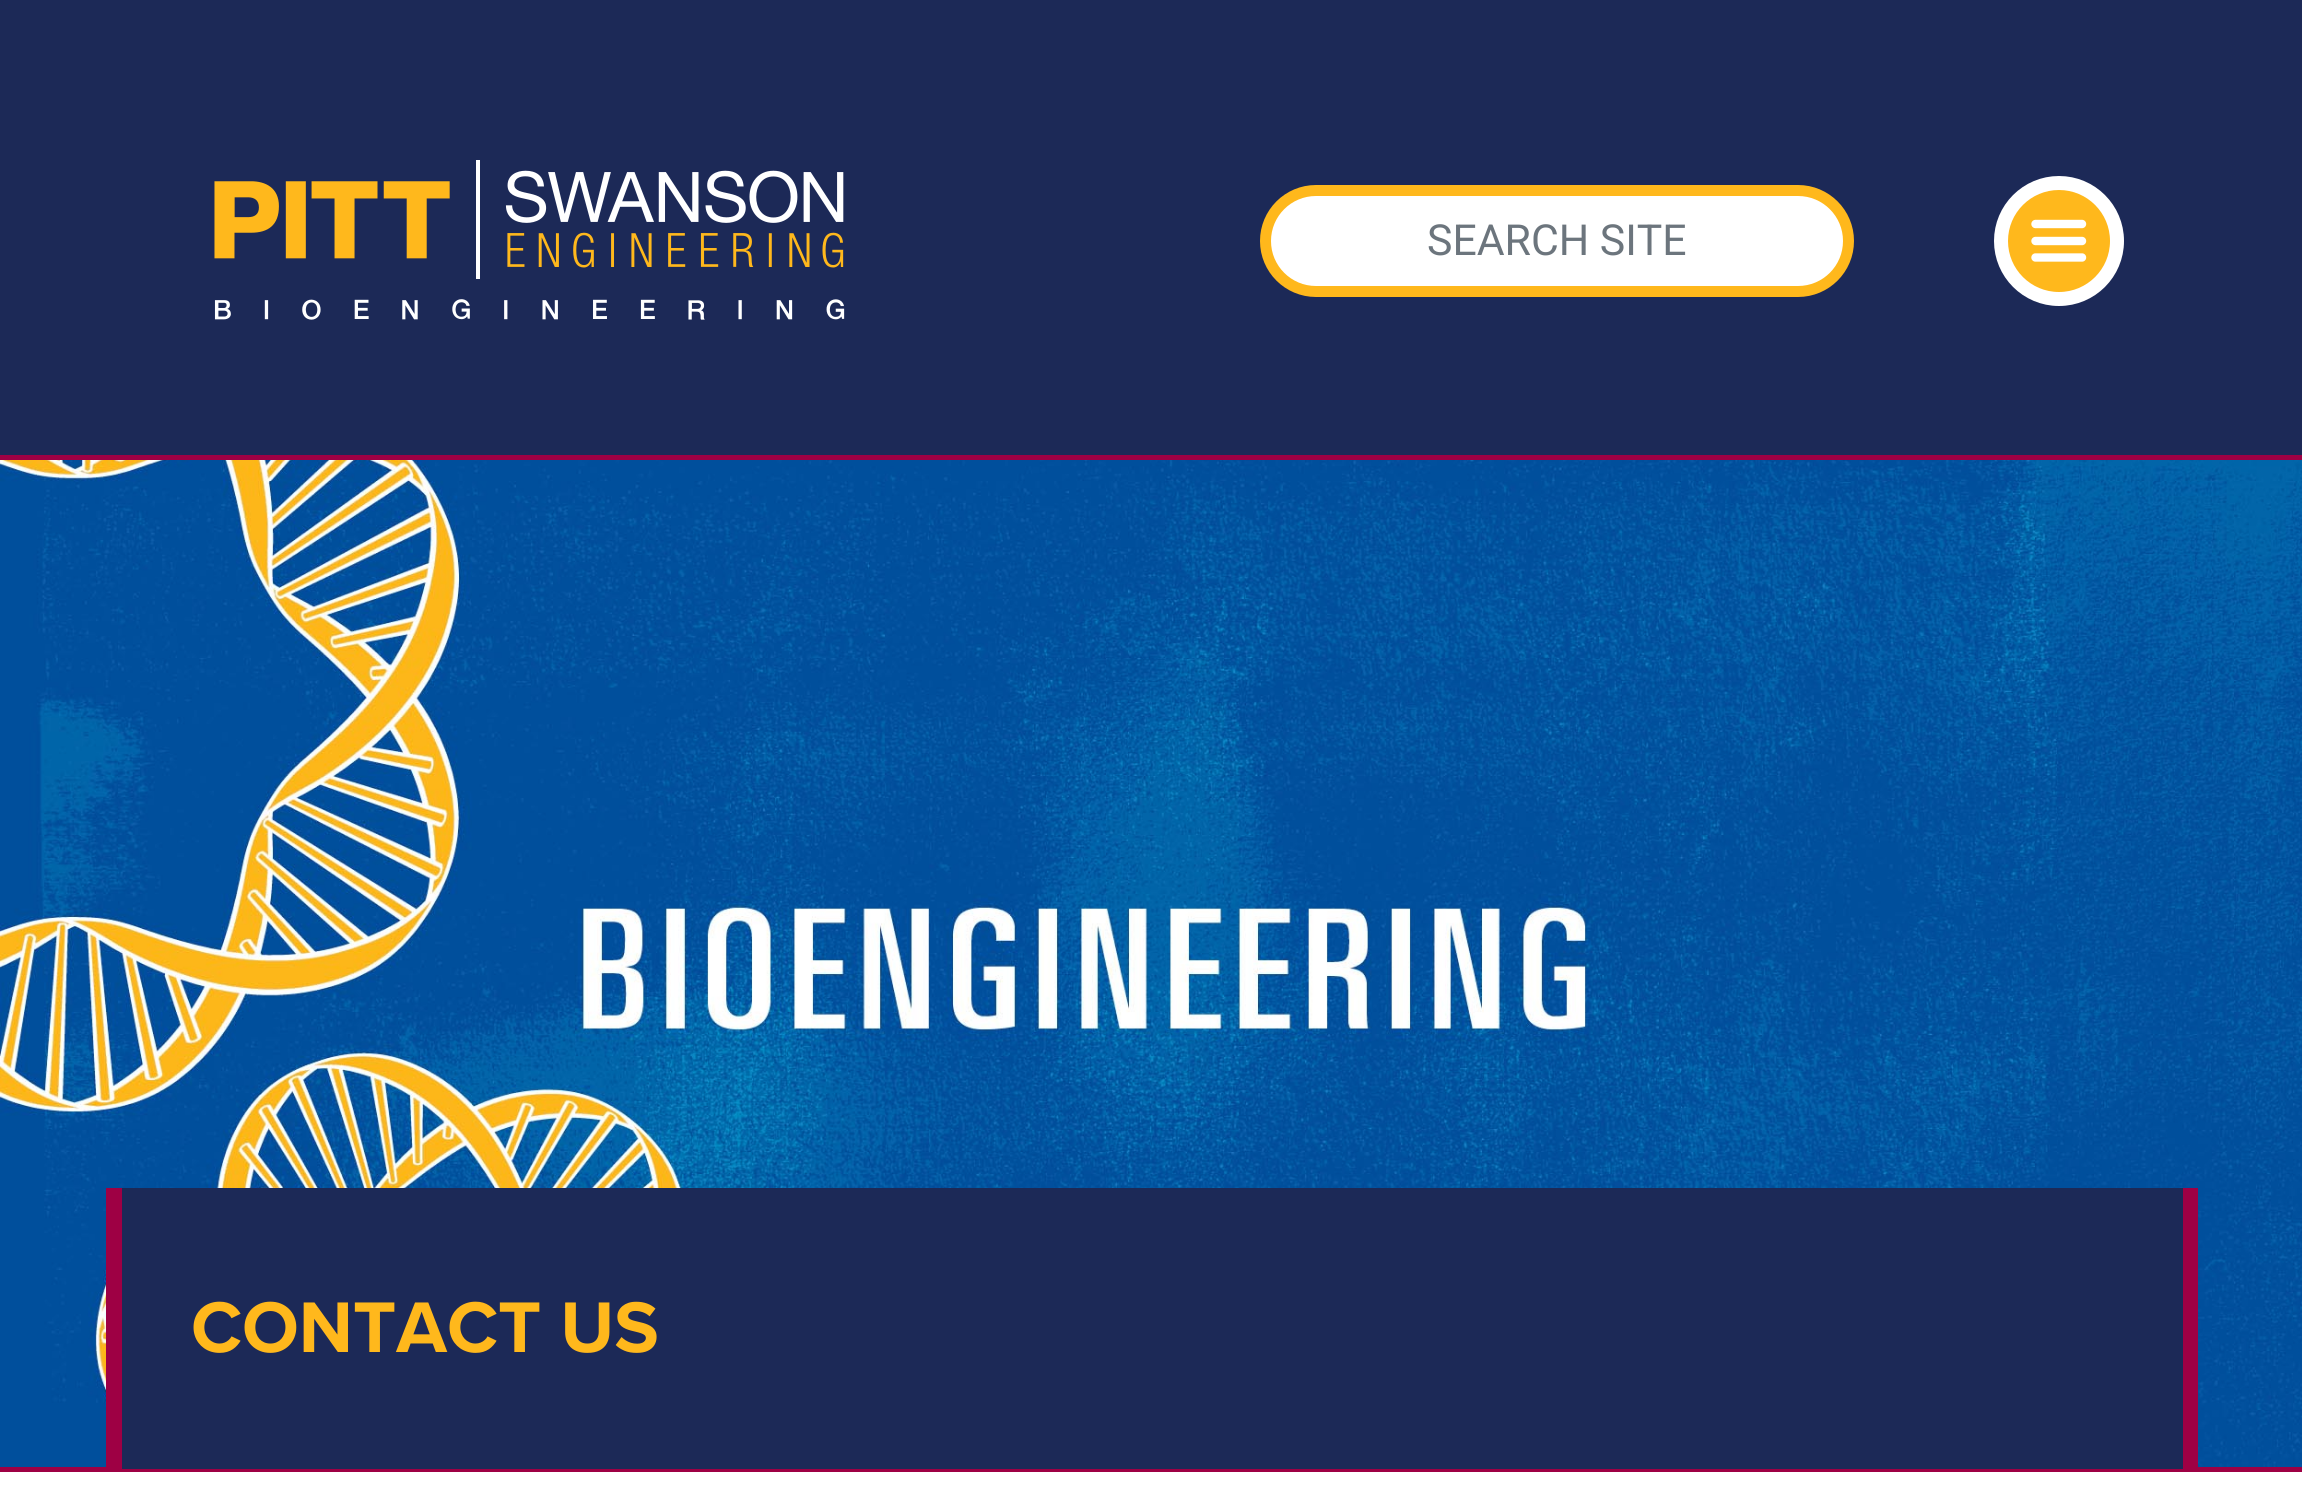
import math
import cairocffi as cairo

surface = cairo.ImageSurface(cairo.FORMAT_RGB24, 2302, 1498)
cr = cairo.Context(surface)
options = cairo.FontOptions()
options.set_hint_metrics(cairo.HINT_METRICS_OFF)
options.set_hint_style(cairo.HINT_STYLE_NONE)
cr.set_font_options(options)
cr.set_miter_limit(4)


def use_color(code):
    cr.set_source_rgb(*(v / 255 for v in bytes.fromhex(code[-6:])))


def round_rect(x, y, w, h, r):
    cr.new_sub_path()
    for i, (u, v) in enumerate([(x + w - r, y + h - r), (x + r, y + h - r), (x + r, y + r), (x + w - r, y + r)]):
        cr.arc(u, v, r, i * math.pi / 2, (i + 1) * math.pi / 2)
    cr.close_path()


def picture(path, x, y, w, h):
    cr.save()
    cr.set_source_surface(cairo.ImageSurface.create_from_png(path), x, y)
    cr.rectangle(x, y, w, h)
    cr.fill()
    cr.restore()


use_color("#ffffff")
cr.paint()
use_color("#1c2957")
cr.rectangle(0, 0, 2302, 455)
cr.fill()
use_color("#9e0044")
cr.rectangle(0, 455, 2302, 5)
cr.fill()
picture("img1.png", 214, 160, 631, 160)
use_color("#ffffff")
round_rect(1265.5, 190.5, 583, 101, 50.5)
cr.fill_preserve()
use_color("#ffb81c")
cr.set_line_width(11)
cr.stroke()
cr.select_font_face("Roboto")
cr.set_font_size(42.75)
use_color("#6c757d")
cr.move_to(1427, 255)
cr.show_text("SEARCH SITE")
use_color("#ffb81c")
cr.new_path()
cr.arc(2059, 241, 58, 0, 2 * math.pi)
cr.fill_preserve()
use_color("#ffffff")
cr.set_line_width(14)
cr.stroke()
cr.new_path()
cr.move_to(2035.5, 224)
cr.line_to(2082, 224)
cr.move_to(2035.5, 241)
cr.line_to(2082, 241)
cr.move_to(2035.5, 257.5)
cr.line_to(2082, 257.5)
cr.set_line_width(8.4)
cr.set_line_cap(cairo.LINE_CAP_ROUND)
cr.stroke()
picture("img2.png", 0, 460, 2302, 1007)
use_color("#9e0044")
cr.rectangle(0, 1467, 2302, 5)
cr.fill()
use_color("#1c2957")
cr.rectangle(122, 1188, 2061, 281)
cr.fill()
use_color("#9e0044")
cr.rectangle(2183, 1188, 15, 279)
cr.fill()
cr.rectangle(106, 1188, 16, 279)
cr.fill()
cr.select_font_face("Proxima Nova", cairo.FONT_SLANT_NORMAL, cairo.FONT_WEIGHT_BOLD)
cr.set_font_size(74.25)
use_color("#ffb81c")
cr.move_to(191, 1352)
cr.show_text("CONTACT US")
surface.write_to_png("result.png")
